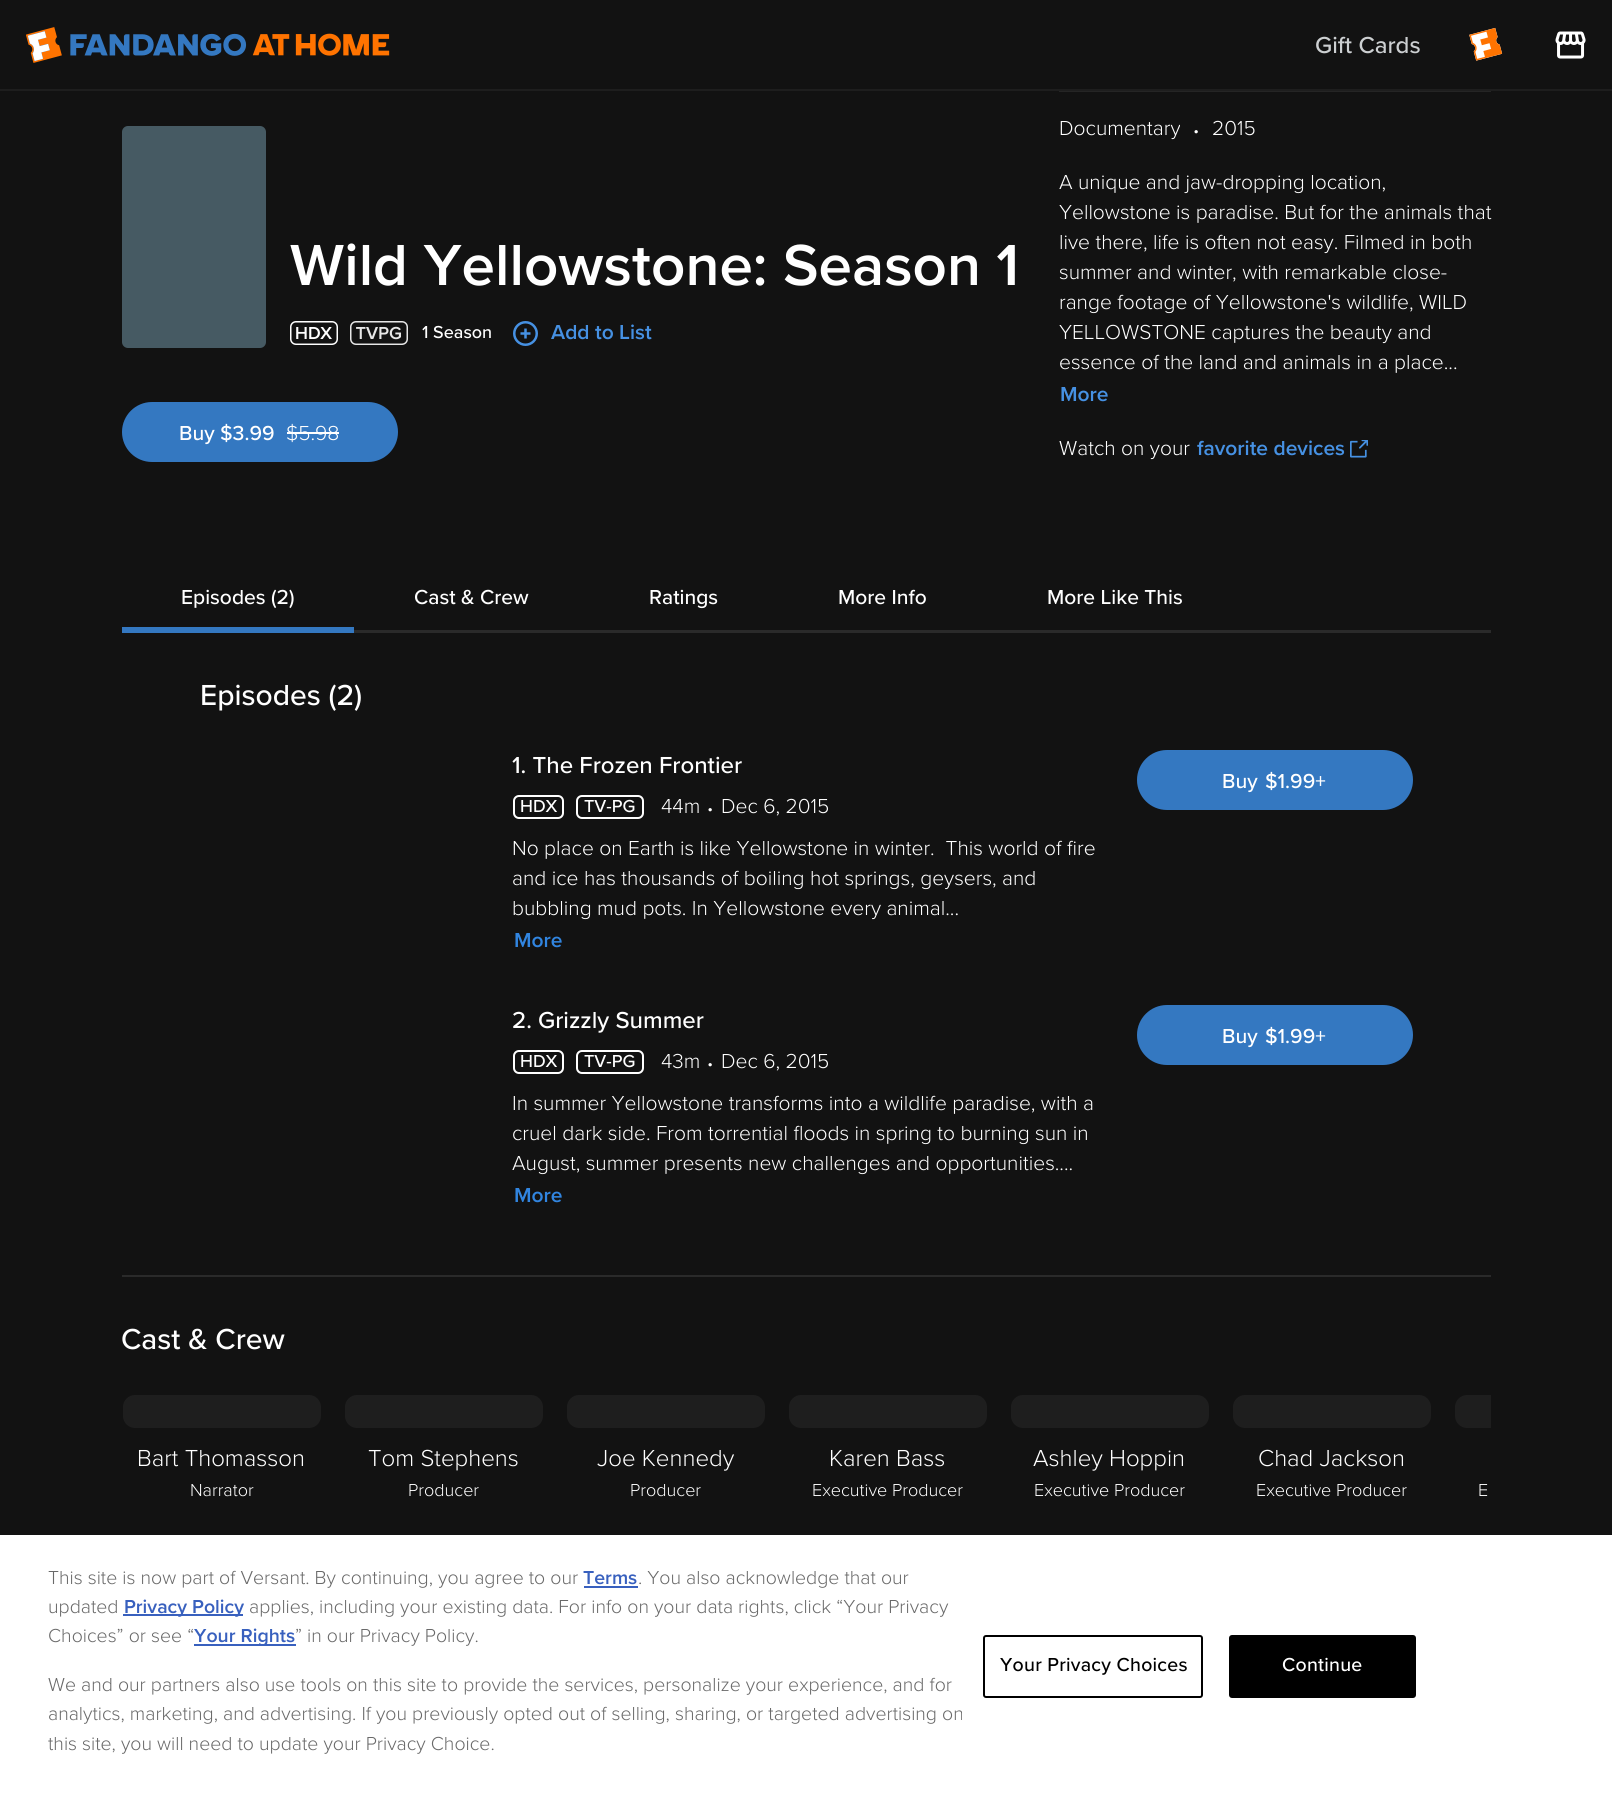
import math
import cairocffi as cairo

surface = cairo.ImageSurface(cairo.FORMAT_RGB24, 1612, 1794)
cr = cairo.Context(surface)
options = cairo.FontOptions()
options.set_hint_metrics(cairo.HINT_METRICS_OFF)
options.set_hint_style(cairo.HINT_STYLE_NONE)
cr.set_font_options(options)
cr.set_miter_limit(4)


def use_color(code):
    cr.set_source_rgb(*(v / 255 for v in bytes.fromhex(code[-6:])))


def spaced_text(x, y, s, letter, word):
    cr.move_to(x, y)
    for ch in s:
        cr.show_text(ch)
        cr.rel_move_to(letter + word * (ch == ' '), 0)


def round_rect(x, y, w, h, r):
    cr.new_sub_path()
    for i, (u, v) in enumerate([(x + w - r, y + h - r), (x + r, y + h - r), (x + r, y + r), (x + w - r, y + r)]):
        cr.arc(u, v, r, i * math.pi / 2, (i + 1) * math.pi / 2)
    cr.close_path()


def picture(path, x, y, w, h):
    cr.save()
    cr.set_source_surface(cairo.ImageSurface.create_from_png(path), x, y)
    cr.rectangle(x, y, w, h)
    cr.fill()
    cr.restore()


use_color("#121212")
cr.paint()
use_color("#1e1e1e")
cr.rectangle(0, 89, 1612, 2)
cr.fill()
picture("img1.png", 26, 27, 364, 36)
cr.select_font_face("Proxima Nova Medium")
cr.set_font_size(24)
use_color("#cccfd1")
cr.move_to(1315, 53)
cr.show_text("Gift Cards")
picture("img2.png", 1469, 27, 34, 34)
picture("img3.png", 1555, 31, 31, 28)
use_color("#465a63")
round_rect(122, 126, 144, 222, 6)
cr.fill()
cr.select_font_face("Proxima Nova SemiBold")
cr.set_font_size(60)
use_color("#ffffff")
cr.move_to(290, 285)
cr.show_text("Wild Yellowstone: Season 1")
picture("img4.png", 290, 321, 48, 24)
picture("img5.png", 350, 321, 58, 24)
cr.select_font_face("Proxima Nova Medium")
cr.set_font_size(18)
cr.move_to(422, 338)
cr.show_text("1 Season")
picture("img6.png", 513, 321, 25, 25)
cr.select_font_face("Proxima Nova SemiBold")
cr.set_font_size(21)
use_color("#4691e3")
cr.move_to(551, 339)
cr.show_text("Add to List")
use_color("#252525")
cr.rectangle(1059, 91, 432, 1)
cr.fill()
cr.select_font_face("Proxima Nova Light")
use_color("#ffffff")
cr.move_to(1059, 135)
cr.show_text("Documentary")
cr.set_font_size(38)
cr.move_to(1192, 141)
cr.show_text("·")
cr.set_font_size(21)
cr.move_to(1212, 135)
cr.show_text("2015")
cr.move_to(1059, 189)
cr.show_text("A unique and jaw-dropping location,")
cr.move_to(1059, 219)
cr.show_text("Yellowstone is paradise. But for the animals that")
cr.move_to(1059, 249)
cr.show_text("live there, life is often not easy. Filmed in both")
cr.move_to(1059, 279)
cr.show_text("summer and winter, with remarkable close-")
cr.move_to(1059, 309)
cr.show_text("range footage of Yellowstone's wildlife, WILD")
cr.move_to(1059, 339)
cr.show_text("YELLOWSTONE captures the beauty and")
cr.move_to(1059, 369)
cr.show_text("essence of the land and animals in a place...")
cr.select_font_face("Proxima Nova SemiBold")
use_color("#4691e3")
cr.move_to(1060, 401)
cr.show_text("More")
cr.select_font_face("Proxima Nova Light")
use_color("#ffffff")
cr.move_to(1059, 455)
cr.show_text("Watch on your")
cr.select_font_face("Proxima Nova SemiBold")
use_color("#4691e3")
cr.move_to(1197, 455)
cr.show_text("favorite devices")
picture("img7.png", 1350, 440, 18, 18)
use_color("#3478c1")
round_rect(122, 402, 276, 60, 30)
cr.fill()
cr.select_font_face("Proxima Nova Medium")
use_color("#ffffff")
cr.move_to(179, 440)
cr.show_text("Buy $3.99")
cr.select_font_face("Proxima Nova Light")
cr.move_to(286, 440)
cr.show_text("$5.98")
cr.rectangle(287, 432, 52, 2)
cr.fill()
use_color("#3478c1")
cr.rectangle(122, 627, 232, 6)
cr.fill()
cr.select_font_face("Proxima Nova Medium")
use_color("#ffffff")
cr.move_to(181, 604)
cr.show_text("Episodes (2)")
cr.move_to(414, 604)
cr.show_text("Cast & Crew")
cr.move_to(649, 604)
cr.show_text("Ratings")
cr.move_to(838, 604)
cr.show_text("More Info")
cr.move_to(1047, 604)
cr.show_text("More Like This")
use_color("#2a2a2a")
cr.rectangle(354, 630, 1137, 3)
cr.fill()
cr.rectangle(122, 1275, 1369, 2)
cr.fill()
cr.set_font_size(30)
use_color("#ffffff")
cr.move_to(200, 705)
cr.show_text("Episodes (2)")
cr.set_font_size(24)
cr.move_to(512, 773)
cr.show_text("1. The Frozen Frontier")
round_rect(514, 796, 49, 22, 5)
cr.stroke()
cr.set_font_size(18)
cr.move_to(520, 812)
cr.show_text("HDX")
round_rect(577, 796, 66, 22, 5)
cr.stroke()
cr.move_to(584, 812)
cr.show_text("TV-PG")
cr.select_font_face("Proxima Nova Light")
cr.set_font_size(21)
cr.move_to(661, 813)
cr.show_text("44m")
cr.set_font_size(38)
cr.move_to(706, 819)
cr.show_text("·")
cr.set_font_size(21)
cr.move_to(721, 813)
cr.show_text("Dec 6, 2015")
cr.move_to(512, 855)
cr.show_text("No place on Earth is like Yellowstone in winter.  This world of fire")
cr.move_to(512, 885)
cr.show_text("and ice has thousands of boiling hot springs, geysers, and")
cr.move_to(512, 915)
cr.show_text("bubbling mud pots. In Yellowstone every animal...")
cr.select_font_face("Proxima Nova SemiBold")
use_color("#3185e0")
cr.move_to(514, 947)
cr.show_text("More")
use_color("#3478c1")
round_rect(1137, 750, 276, 60, 30)
cr.fill()
cr.select_font_face("Proxima Nova Medium")
use_color("#ffffff")
cr.move_to(1222, 788)
cr.show_text("Buy")
cr.move_to(1265, 788)
cr.show_text("$1.99+")
cr.set_font_size(24)
cr.move_to(512, 1028)
cr.show_text("2. Grizzly Summer")
round_rect(514, 1051, 49, 22, 5)
cr.stroke()
cr.set_font_size(18)
cr.move_to(520, 1067)
cr.show_text("HDX")
round_rect(577, 1051, 66, 22, 5)
cr.stroke()
cr.move_to(584, 1067)
cr.show_text("TV-PG")
cr.select_font_face("Proxima Nova Light")
cr.set_font_size(21)
cr.move_to(661, 1068)
cr.show_text("43m")
cr.set_font_size(38)
cr.move_to(706, 1074)
cr.show_text("·")
cr.set_font_size(21)
cr.move_to(721, 1068)
cr.show_text("Dec 6, 2015")
cr.move_to(512, 1110)
cr.show_text("In summer Yellowstone transforms into a wildlife paradise, with a")
cr.move_to(512, 1140)
cr.show_text("cruel dark side. From torrential floods in spring to burning sun in")
cr.move_to(512, 1170)
cr.show_text("August, summer presents new challenges and opportunities....")
cr.select_font_face("Proxima Nova SemiBold")
use_color("#3185e0")
cr.move_to(514, 1202)
cr.show_text("More")
use_color("#3478c1")
round_rect(1137, 1005, 276, 60, 30)
cr.fill()
cr.select_font_face("Proxima Nova Medium")
use_color("#ffffff")
cr.move_to(1222, 1043)
cr.show_text("Buy")
cr.move_to(1265, 1043)
cr.show_text("$1.99+")
cr.set_font_size(30)
cr.move_to(121, 1349)
cr.show_text("Cast & Crew")
use_color("#1e1e1e")
round_rect(123, 1395, 198, 33, 12)
cr.fill()
cr.select_font_face("Proxima Nova Light")
cr.set_font_size(24)
use_color("#ffffff")
cr.move_to(137, 1466)
cr.show_text("Bart Thomasson")
cr.set_font_size(18)
cr.move_to(190, 1496)
cr.show_text("Narrator")
use_color("#1e1e1e")
round_rect(345, 1395, 198, 33, 12)
cr.fill()
cr.set_font_size(24)
use_color("#ffffff")
cr.move_to(368, 1466)
cr.show_text("Tom Stephens")
cr.set_font_size(18)
cr.move_to(408, 1496)
cr.show_text("Producer")
use_color("#1e1e1e")
round_rect(567, 1395, 198, 33, 12)
cr.fill()
cr.set_font_size(24)
use_color("#ffffff")
cr.move_to(597, 1466)
cr.show_text("Joe Kennedy")
cr.set_font_size(18)
cr.move_to(630, 1496)
cr.show_text("Producer")
use_color("#1e1e1e")
round_rect(789, 1395, 198, 33, 12)
cr.fill()
cr.set_font_size(24)
use_color("#ffffff")
cr.move_to(829, 1466)
cr.show_text("Karen Bass")
cr.set_font_size(18)
cr.move_to(812, 1496)
cr.show_text("Executive Producer")
use_color("#1e1e1e")
round_rect(1011, 1395, 198, 33, 12)
cr.fill()
cr.set_font_size(24)
use_color("#ffffff")
cr.move_to(1033, 1466)
cr.show_text("Ashley Hoppin")
cr.set_font_size(18)
cr.move_to(1034, 1496)
cr.show_text("Executive Producer")
use_color("#1e1e1e")
round_rect(1233, 1395, 198, 33, 12)
cr.fill()
cr.set_font_size(24)
use_color("#ffffff")
cr.move_to(1258, 1466)
cr.show_text("Chad Jackson")
cr.set_font_size(18)
cr.move_to(1256, 1496)
cr.show_text("Executive Producer")
use_color("#1e1e1e")
cr.new_path()
cr.move_to(1467, 1395)
cr.line_to(1491, 1395)
cr.line_to(1491, 1428)
cr.line_to(1467, 1428)
cr.curve_to(1460.5, 1428, 1455, 1422.5, 1455, 1416)
cr.line_to(1455, 1407)
cr.curve_to(1455, 1400.5, 1460.5, 1395, 1467, 1395)
cr.close_path()
cr.fill()
use_color("#ffffff")
cr.move_to(1478, 1496)
cr.show_text("E")
cr.rectangle(0, 1535, 1612, 259)
cr.fill()
cr.set_font_size(19.5)
use_color("#696969")
cr.move_to(48, 1584)
cr.show_text("This site is now part of Versant. By continuing, you agree to our")
cr.select_font_face("Proxima Nova SemiBold")
use_color("#3860be")
cr.move_to(583, 1584)
cr.show_text("Terms")
cr.rectangle(584, 1586, 54, 2)
cr.fill()
cr.select_font_face("Proxima Nova Light")
use_color("#696969")
cr.move_to(638, 1584)
cr.show_text(". You also acknowledge that our")
cr.move_to(48, 1613)
cr.show_text("updated")
use_color("#3860be")
cr.rectangle(123, 1614, 120, 2)
cr.fill()
cr.select_font_face("Proxima Nova SemiBold")
cr.move_to(124, 1613)
cr.show_text("Privacy Policy")
cr.select_font_face("Proxima Nova Light")
use_color("#696969")
cr.move_to(249, 1613)
cr.show_text("applies, including your existing data. For info on your data rights, click “Your Privacy")
cr.move_to(48, 1642)
cr.show_text("Choices” or see “")
use_color("#3860be")
cr.rectangle(194, 1644, 102, 2)
cr.fill()
cr.select_font_face("Proxima Nova SemiBold")
cr.move_to(194, 1642)
cr.show_text("Your Rights")
cr.select_font_face("Proxima Nova Light")
use_color("#696969")
cr.move_to(295, 1642)
cr.show_text("” in our Privacy Policy.")
cr.move_to(48, 1691)
cr.show_text("We and our partners also use tools on this site to provide the services, personalize your experience, and for")
cr.move_to(48, 1720)
cr.show_text("analytics, marketing, and advertising. If you previously opted out of selling, sharing, or targeted advertising on")
cr.move_to(48, 1750)
cr.show_text("this site, you will need to update your Privacy Choice.")
round_rect(984, 1636, 218, 61, 2)
use_color("#000000")
cr.stroke()
cr.select_font_face("Proxima Nova Medium")
spaced_text(1000, 1671, "Your Privacy Choices", 0.25, 0)
round_rect(1230, 1636, 185, 61, 2)
cr.fill_preserve()
cr.stroke()
use_color("#ffffff")
spaced_text(1282, 1671, "Continue", 0.25, 0)
surface.write_to_png("result.png")
